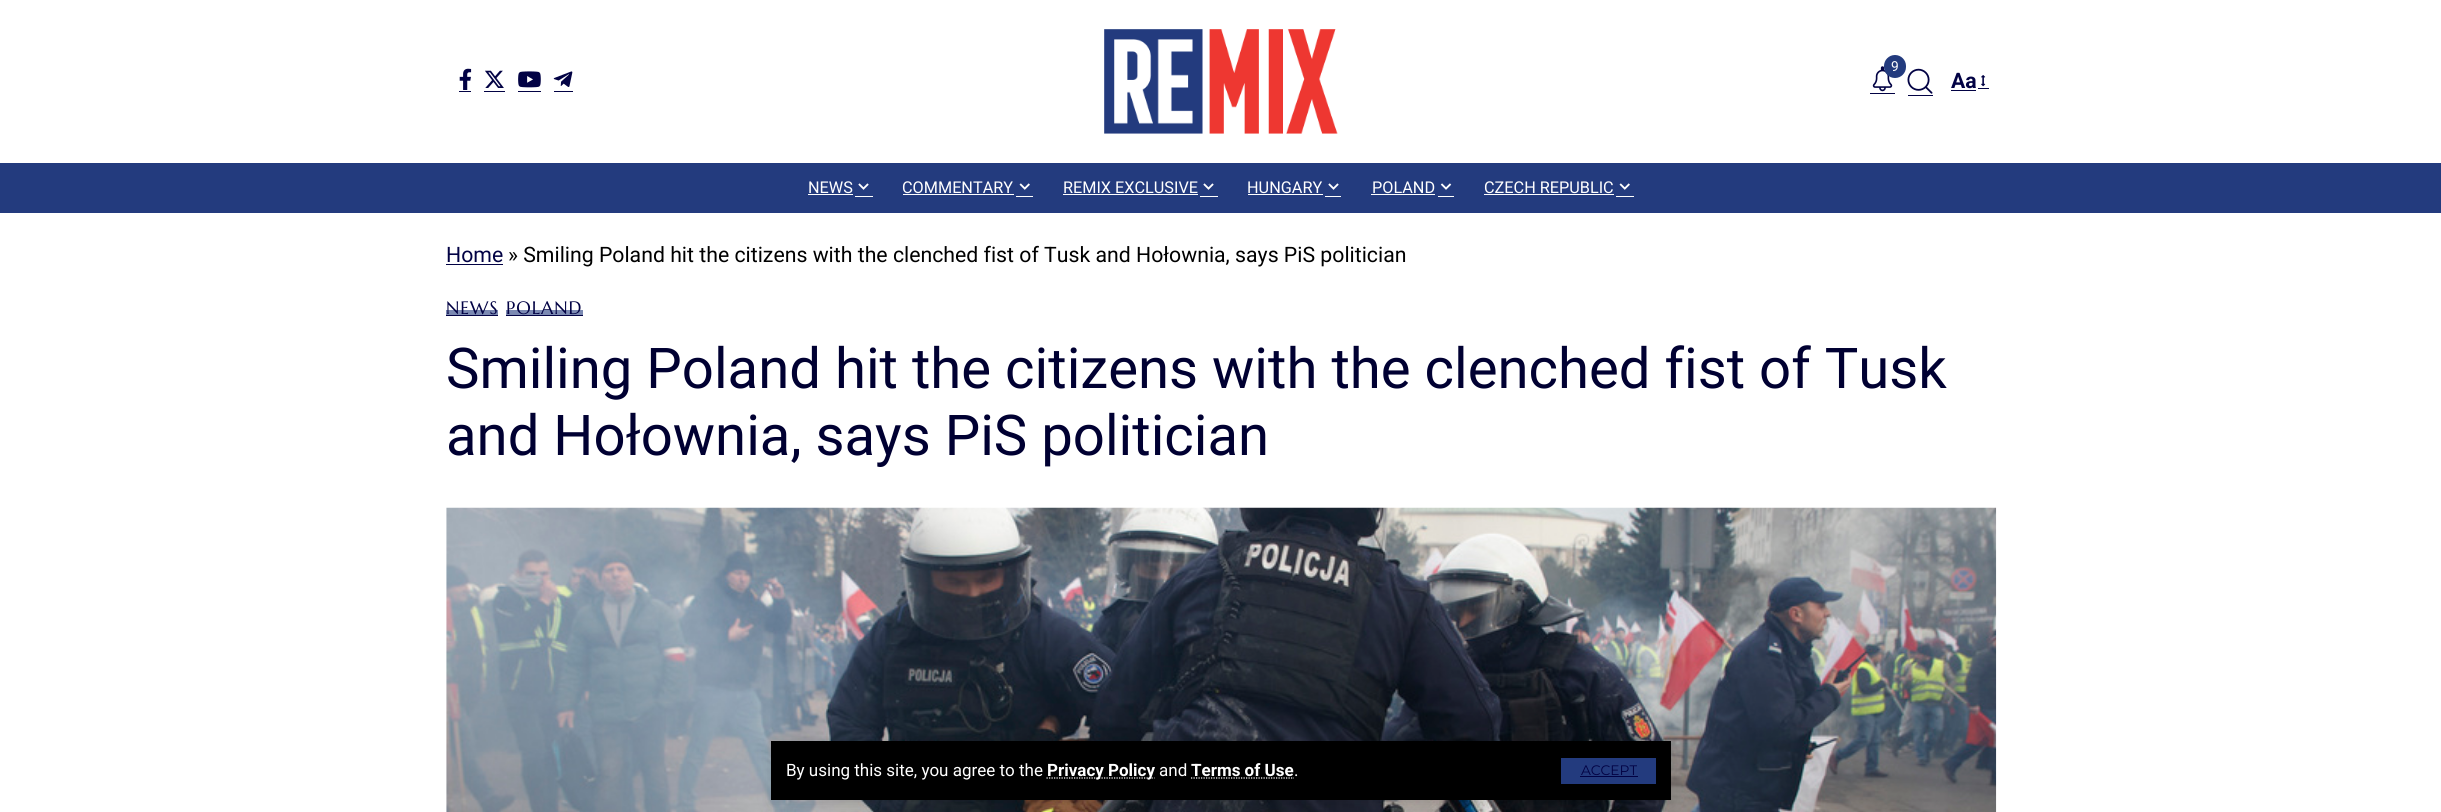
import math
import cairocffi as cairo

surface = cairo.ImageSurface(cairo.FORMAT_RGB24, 2441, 812)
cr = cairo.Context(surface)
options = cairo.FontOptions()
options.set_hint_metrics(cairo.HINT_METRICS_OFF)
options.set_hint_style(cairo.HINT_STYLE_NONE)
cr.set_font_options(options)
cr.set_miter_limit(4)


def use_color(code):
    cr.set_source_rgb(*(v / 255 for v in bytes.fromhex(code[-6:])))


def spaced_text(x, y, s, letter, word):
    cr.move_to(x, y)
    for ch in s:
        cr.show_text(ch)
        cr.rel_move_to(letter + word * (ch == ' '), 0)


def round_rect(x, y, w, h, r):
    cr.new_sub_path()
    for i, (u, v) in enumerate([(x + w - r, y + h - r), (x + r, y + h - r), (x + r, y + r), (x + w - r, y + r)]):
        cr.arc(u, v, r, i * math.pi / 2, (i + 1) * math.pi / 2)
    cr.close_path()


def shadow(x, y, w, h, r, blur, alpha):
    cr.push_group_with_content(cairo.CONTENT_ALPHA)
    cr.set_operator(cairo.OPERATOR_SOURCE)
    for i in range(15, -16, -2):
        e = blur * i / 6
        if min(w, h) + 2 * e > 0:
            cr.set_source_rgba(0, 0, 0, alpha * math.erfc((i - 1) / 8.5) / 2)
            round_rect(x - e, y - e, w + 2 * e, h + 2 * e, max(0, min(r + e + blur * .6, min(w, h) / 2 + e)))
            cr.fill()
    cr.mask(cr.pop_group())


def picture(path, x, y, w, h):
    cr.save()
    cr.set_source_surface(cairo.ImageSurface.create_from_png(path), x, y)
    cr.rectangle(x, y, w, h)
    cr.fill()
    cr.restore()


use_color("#ffffff")
cr.paint()
picture("img1.png", 459, 68, 13, 22)
use_color("#020244")
cr.rectangle(459, 91, 12, 1)
cr.fill()
picture("img2.png", 485, 70, 19, 18)
cr.rectangle(484, 91, 21, 1)
cr.fill()
picture("img3.png", 518, 71, 23, 17)
cr.rectangle(518, 91, 23, 1)
cr.fill()
picture("img4.png", 553, 71, 20, 16)
cr.rectangle(554, 91, 19, 1)
cr.fill()
picture("img5.png", 1104, 29, 234, 105)
picture("img6.png", 1872, 66, 21, 26)
use_color("#233b7e")
round_rect(1884, 55, 22, 23, 11)
cr.fill()
cr.select_font_face("Roboto")
cr.set_font_size(13.75)
use_color("#ffffff")
cr.move_to(1891, 71)
cr.show_text("9")
use_color("#020244")
cr.rectangle(1870, 93, 25, 1)
cr.fill()
picture("img7.png", 1907, 68, 26, 26)
cr.rectangle(1908, 95, 25, 1)
cr.fill()
cr.select_font_face("Roboto", cairo.FONT_SLANT_NORMAL, cairo.FONT_WEIGHT_BOLD)
cr.set_font_size(21.25)
cr.move_to(1951, 88)
cr.show_text("Aa")
cr.rectangle(1951, 90, 25, 1)
cr.fill()
cr.rectangle(1978, 88, 11, 1)
cr.fill()
picture("img8.png", 1981, 75, 5, 12)
use_color("#233b7e")
cr.rectangle(0, 163, 2441, 50)
cr.fill()
cr.select_font_face("Roboto")
cr.set_font_size(16.25)
use_color("#ffffff")
cr.move_to(808, 193)
cr.show_text("NEWS")
cr.rectangle(808, 194, 45, 1)
cr.fill()
cr.rectangle(855, 196, 18, 1)
cr.fill()
picture("img9.png", 858, 183, 11, 7)
cr.move_to(902, 193)
cr.show_text("COMMENTARY")
cr.rectangle(903, 194, 111, 1)
cr.fill()
cr.rectangle(1016, 196, 17, 1)
cr.fill()
picture("img10.png", 1019, 183, 11, 7)
cr.move_to(1063, 193)
cr.show_text("REMIX EXCLUSIVE")
cr.rectangle(1063, 194, 135, 1)
cr.fill()
cr.rectangle(1200, 196, 18, 1)
cr.fill()
picture("img9.png", 1203, 183, 11, 7)
cr.move_to(1247, 193)
cr.show_text("HUNGARY")
cr.rectangle(1248, 194, 75, 1)
cr.fill()
cr.rectangle(1325, 196, 16, 1)
cr.fill()
picture("img9.png", 1328, 183, 11, 7)
cr.move_to(1372, 193)
cr.show_text("POLAND")
cr.rectangle(1371, 194, 64, 1)
cr.fill()
cr.rectangle(1438, 196, 16, 1)
cr.fill()
picture("img11.png", 1440, 183, 12, 7)
cr.move_to(1484, 193)
cr.show_text("CZECH REPUBLIC")
cr.rectangle(1484, 194, 130, 1)
cr.fill()
cr.rectangle(1616, 196, 18, 1)
cr.fill()
picture("img10.png", 1619, 183, 11, 7)
picture("img12.png", 446, 507, 1551, 305)
use_color("#000000")
shadow(771, 745, 900, 59, 0, 7.5, 0.12)
use_color("#000000")
cr.rectangle(771, 741, 900, 59)
cr.fill()
cr.set_font_size(17)
use_color("#ffffff")
cr.move_to(786, 776)
cr.show_text("By using this site, you agree to the")
cr.new_path()
cr.move_to(1046.5, 778)
cr.line_to(1154.5, 778)
cr.set_line_width(1.2)
cr.set_dash([1.25, 1.25])
cr.stroke()
cr.select_font_face("Roboto", cairo.FONT_SLANT_NORMAL, cairo.FONT_WEIGHT_BOLD)
cr.move_to(1047, 776)
cr.show_text("Privacy Policy")
cr.select_font_face("Roboto")
cr.move_to(1159, 776)
cr.show_text("and")
cr.select_font_face("Roboto", cairo.FONT_SLANT_NORMAL, cairo.FONT_WEIGHT_BOLD)
cr.move_to(1191, 776)
cr.show_text("Terms of Use")
cr.new_path()
cr.move_to(1191, 778)
cr.line_to(1294, 778)
cr.stroke()
cr.select_font_face("Roboto")
cr.move_to(1294, 776)
cr.show_text(".")
use_color("#233b7e")
cr.rectangle(1561, 758, 95, 26)
cr.fill()
cr.select_font_face("Montserrat")
cr.set_font_size(13.75)
use_color("#020244")
cr.move_to(1581, 775)
cr.show_text("ACCEPT")
cr.rectangle(1580, 776, 58, 1)
cr.fill()
cr.select_font_face("Roboto")
cr.set_font_size(21.25)
cr.move_to(446, 262)
cr.show_text("Home")
cr.rectangle(446, 264, 57, 1)
cr.fill()
use_color("#000000")
cr.move_to(508, 262)
cr.show_text("» Smiling Poland hit the citizens with the clenched fist of Tusk and Hołownia, says PiS politician")
use_color("#7b89b2")
cr.rectangle(446, 310, 52, 5)
cr.fill()
cr.select_font_face("Marcellus")
cr.set_font_size(18)
use_color("#020244")
spaced_text(446, 314, "NEWS", 1, 0)
cr.rectangle(446, 315, 52, 1)
cr.fill()
use_color("#7b89b2")
cr.rectangle(506, 310, 77, 5)
cr.fill()
use_color("#020244")
spaced_text(506, 314, "POLAND", 1, 0)
cr.rectangle(506, 315, 77, 1)
cr.fill()
cr.select_font_face("Roboto")
cr.set_font_size(56.25)
use_color("#000032")
cr.move_to(446, 388)
cr.show_text("Smiling Poland hit the citizens with the clenched fist of Tusk")
cr.move_to(446, 455)
cr.show_text("and Hołownia, says PiS politician")
surface.write_to_png("result.png")
